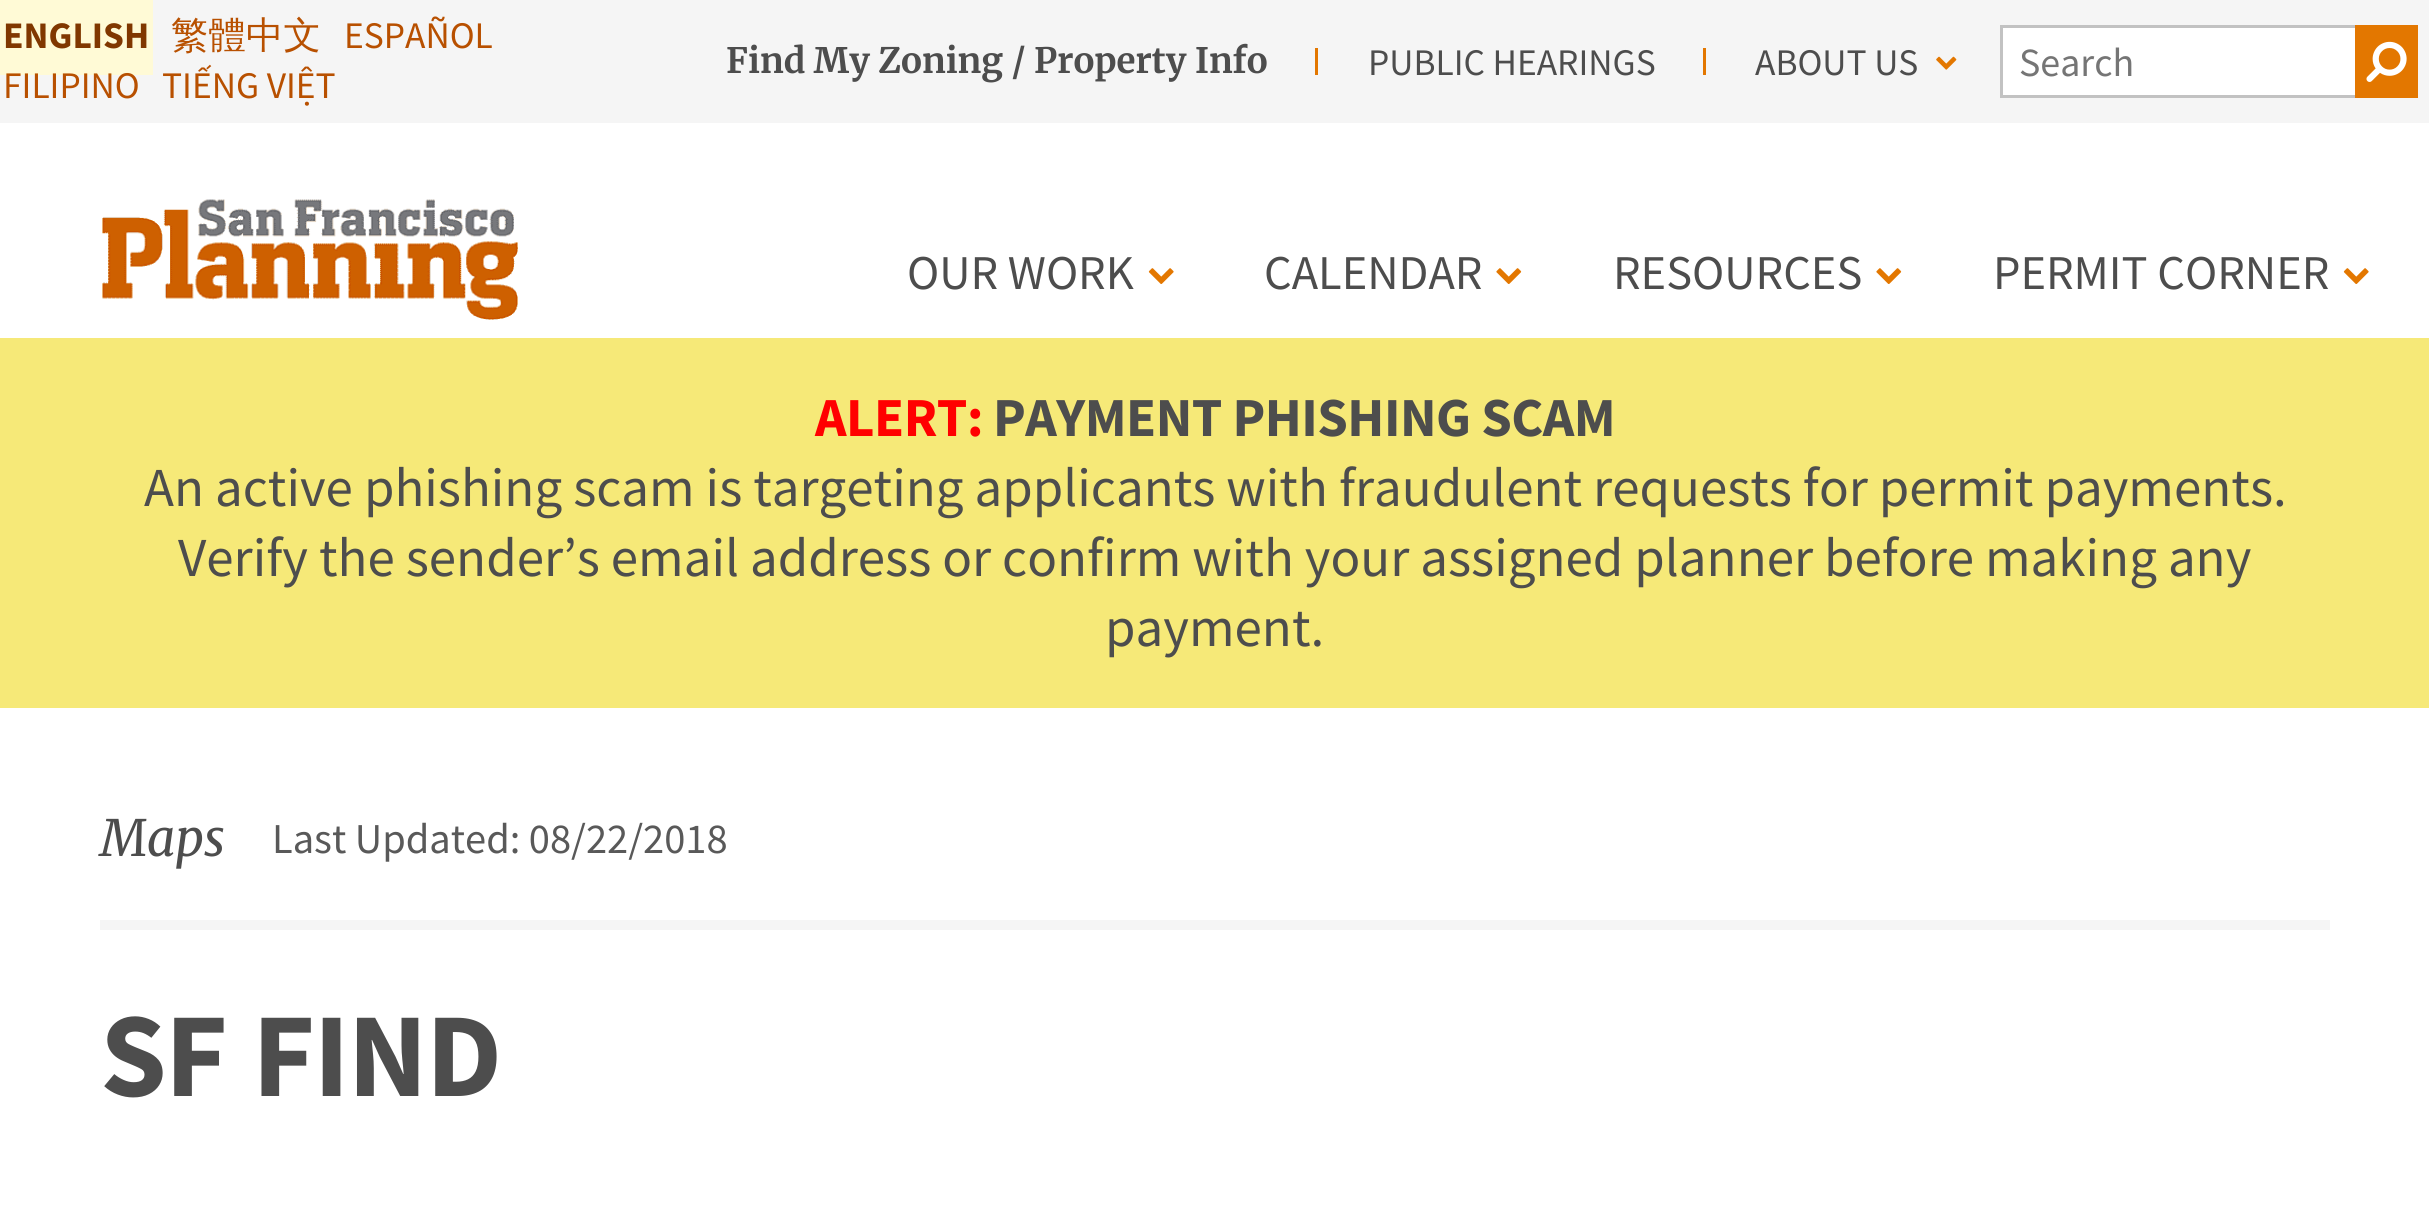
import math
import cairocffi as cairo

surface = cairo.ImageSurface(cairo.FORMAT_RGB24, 2429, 1219)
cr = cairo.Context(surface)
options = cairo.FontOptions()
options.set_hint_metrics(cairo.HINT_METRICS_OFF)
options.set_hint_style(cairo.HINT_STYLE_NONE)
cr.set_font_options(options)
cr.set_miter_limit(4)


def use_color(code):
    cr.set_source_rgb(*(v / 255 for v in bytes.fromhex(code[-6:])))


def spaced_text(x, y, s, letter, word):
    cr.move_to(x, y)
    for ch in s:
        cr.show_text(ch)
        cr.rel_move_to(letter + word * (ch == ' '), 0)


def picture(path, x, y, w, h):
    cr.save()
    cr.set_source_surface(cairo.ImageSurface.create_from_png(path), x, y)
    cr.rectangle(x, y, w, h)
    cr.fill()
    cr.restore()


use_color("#ffffff")
cr.paint()
use_color("#f5f5f5")
cr.rectangle(0, 0, 2429, 123)
cr.fill()
use_color("#fffad6")
cr.rectangle(0, 0, 153, 75)
cr.fill()
cr.select_font_face("Source Sans Pro", cairo.FONT_SLANT_NORMAL, cairo.FONT_WEIGHT_BOLD)
cr.set_font_size(37.5)
use_color("#803700")
cr.move_to(3, 48)
cr.show_text("ENGLISH")
cr.select_font_face("WenQuanYi Zen Hei Medium")
use_color("#b85000")
cr.move_to(171, 48)
cr.show_text("繁體中文")
cr.select_font_face("Source Sans Pro")
cr.move_to(344, 48)
cr.show_text("ESPAÑOL")
cr.move_to(3, 98)
cr.show_text("FILIPINO")
cr.move_to(162, 98)
cr.show_text("TIẾNG VIỆT")
cr.select_font_face("Merriweather", cairo.FONT_SLANT_NORMAL, cairo.FONT_WEIGHT_BOLD)
cr.set_font_size(35)
use_color("#4d4d4d")
cr.move_to(726, 73)
cr.show_text("Find My Zoning / Property Info")
use_color("#e37700")
cr.rectangle(1315, 48, 3, 27)
cr.fill()
cr.select_font_face("Source Sans Pro")
cr.set_font_size(37.5)
use_color("#4d4d4d")
cr.move_to(1368, 75)
cr.show_text("PUBLIC HEARINGS")
use_color("#e37700")
cr.rectangle(1703, 48, 3, 27)
cr.fill()
use_color("#4d4d4d")
cr.move_to(1755, 75)
cr.show_text("ABOUT US")
picture("img1.png", 1936, 56, 21, 14)
use_color("#ffffff")
cr.rectangle(2003, 28, 352, 67)
cr.fill()
use_color("#c2c2c2")
cr.rectangle(2000, 25, 355, 3)
cr.fill()
cr.rectangle(2000, 95, 355, 3)
cr.fill()
cr.rectangle(2000, 25, 3, 73)
cr.fill()
cr.set_font_size(40)
use_color("#757575")
cr.move_to(2019, 76)
cr.show_text("Search")
use_color("#e37700")
cr.rectangle(2355, 25, 63, 73)
cr.fill()
picture("img2.png", 2366, 41, 41, 41)
picture("img3.png", 102, 199, 416, 121)
cr.set_font_size(48.5)
use_color("#4d4d4d")
cr.move_to(907, 289)
cr.show_text("OUR WORK")
picture("img4.png", 1148, 268, 26, 16)
cr.move_to(1264, 289)
cr.show_text("CALENDAR")
picture("img5.png", 1496, 268, 26, 16)
cr.move_to(1613, 289)
cr.show_text("RESOURCES")
picture("img5.png", 1876, 268, 26, 16)
cr.move_to(1993, 289)
cr.show_text("PERMIT CORNER")
picture("img4.png", 2343, 268, 26, 16)
use_color("#f6e978")
cr.rectangle(0, 338, 2429, 370)
cr.fill()
cr.select_font_face("Source Sans Pro", cairo.FONT_SLANT_NORMAL, cairo.FONT_WEIGHT_BOLD)
cr.set_font_size(55)
use_color("#ff0000")
spaced_text(815, 436, "ALERT:", -0.5, 0)
use_color("#4d4d4d")
spaced_text(993, 436, "PAYMENT PHISHING SCAM", -0.5, 0)
cr.select_font_face("Source Sans Pro")
cr.move_to(144, 506)
cr.show_text("An active phishing scam is targeting applicants with fraudulent requests for permit payments.")
cr.move_to(178, 576)
cr.show_text("Verify the sender’s email address or confirm with your assigned planner before making any")
cr.move_to(1105, 646)
cr.show_text("payment.")
use_color("#f5f5f5")
cr.rectangle(100, 920, 2230, 10)
cr.fill()
cr.select_font_face("Merriweather", cairo.FONT_SLANT_ITALIC)
cr.set_font_size(50)
use_color("#4d4d4d")
cr.move_to(100, 856)
cr.show_text("Maps")
cr.select_font_face("Source Sans Pro")
cr.set_font_size(42.5)
use_color("#595959")
cr.move_to(272, 853)
cr.show_text("Last Updated: 08/22/2018")
cr.select_font_face("Source Sans Pro", cairo.FONT_SLANT_NORMAL, cairo.FONT_WEIGHT_BOLD)
cr.set_font_size(120)
use_color("#4d4d4d")
spaced_text(100, 1096, "SF FIND", -1.75, 4)
surface.write_to_png("result.png")
